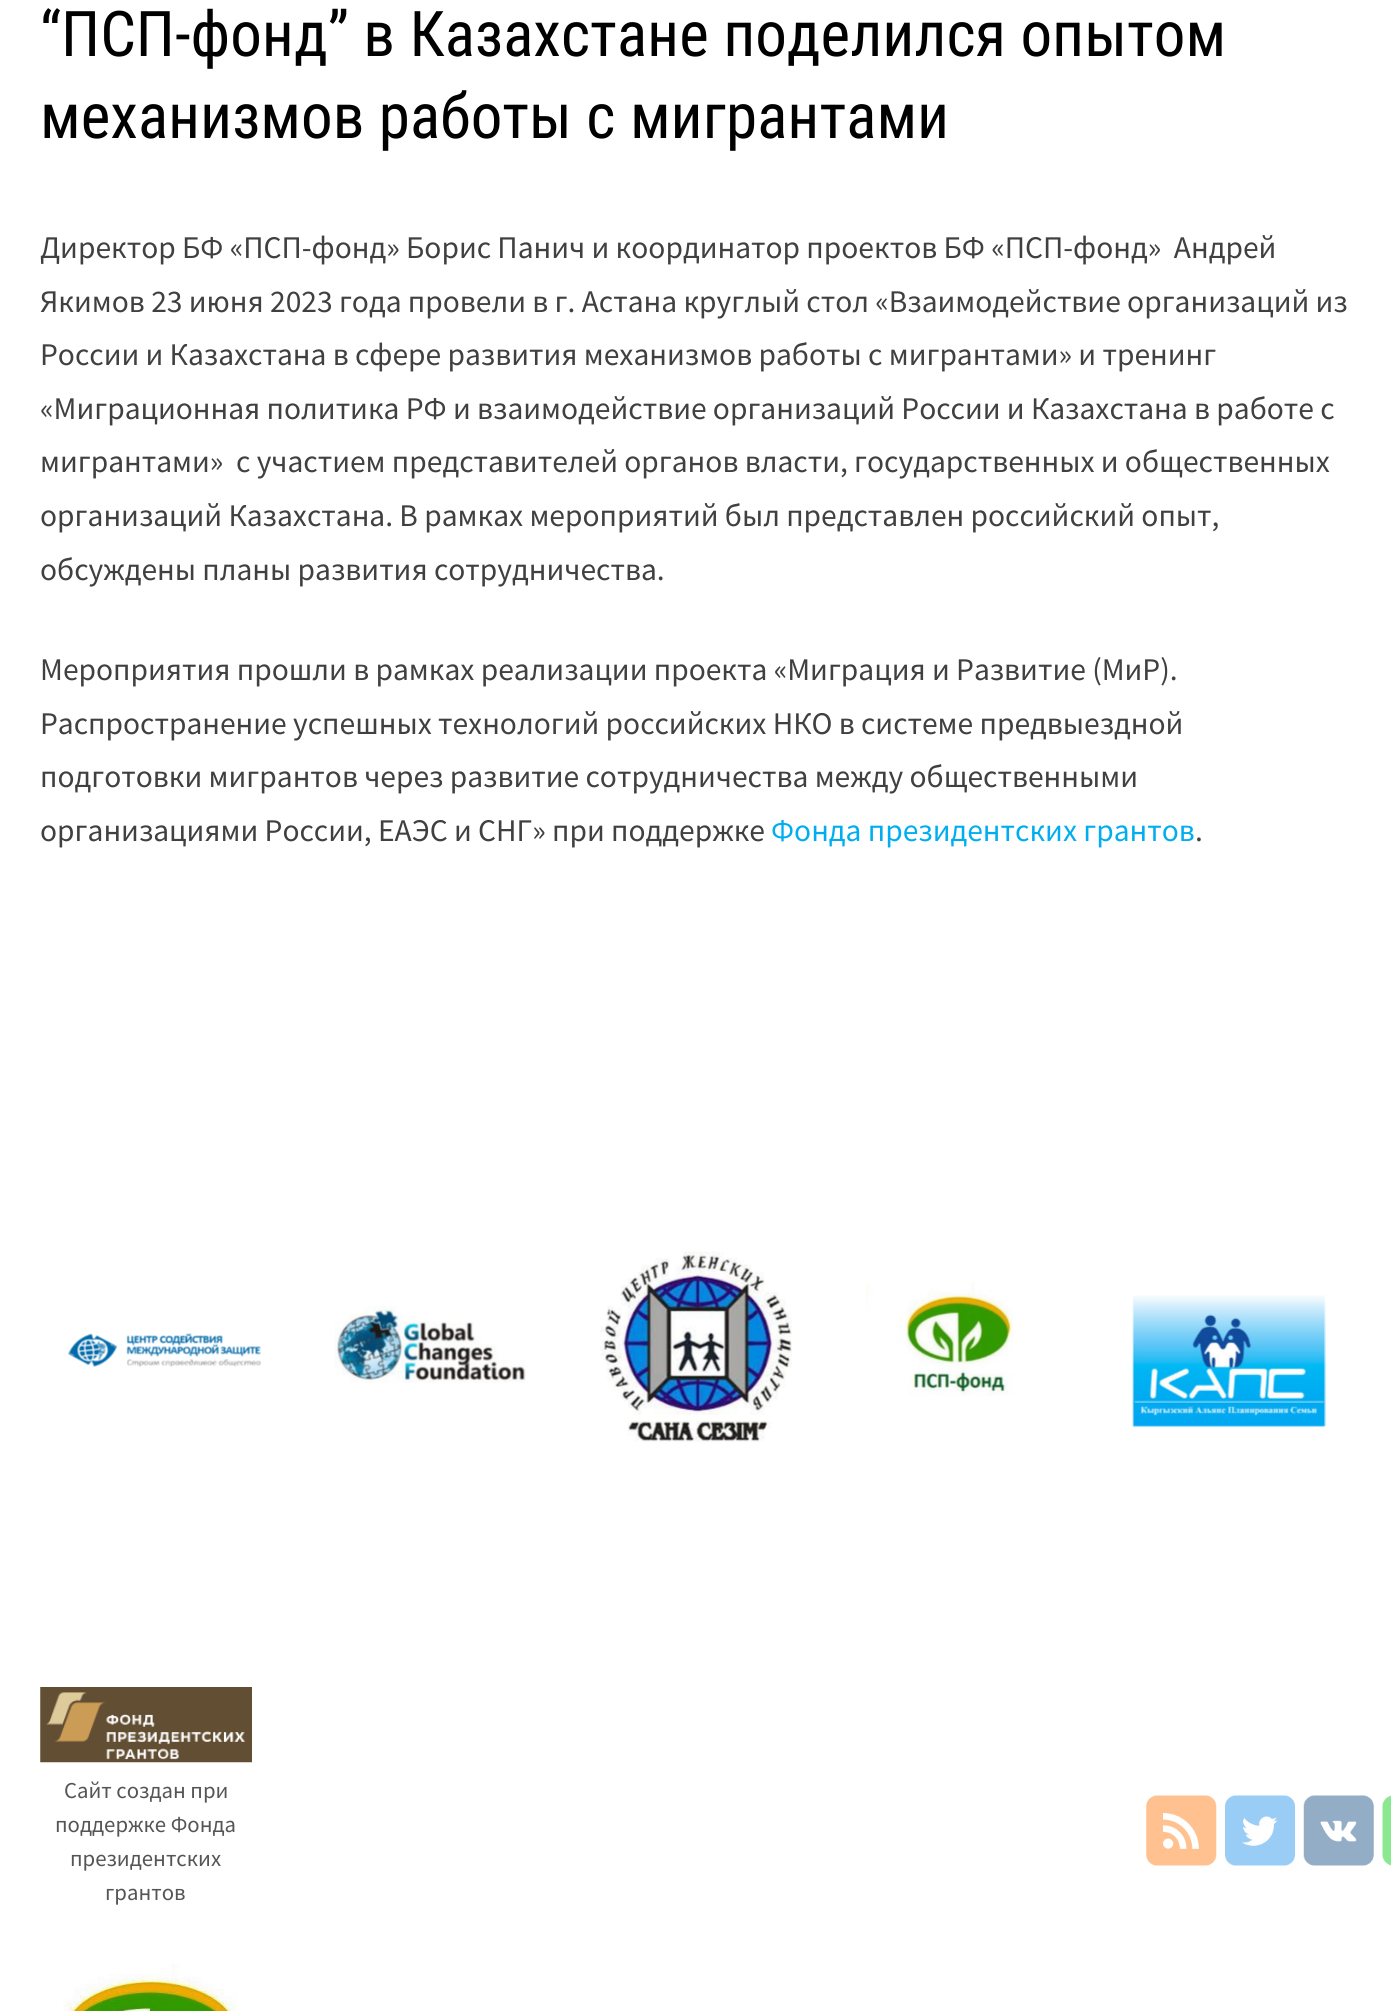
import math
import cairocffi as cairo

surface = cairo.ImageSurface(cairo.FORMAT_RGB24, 1391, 2011)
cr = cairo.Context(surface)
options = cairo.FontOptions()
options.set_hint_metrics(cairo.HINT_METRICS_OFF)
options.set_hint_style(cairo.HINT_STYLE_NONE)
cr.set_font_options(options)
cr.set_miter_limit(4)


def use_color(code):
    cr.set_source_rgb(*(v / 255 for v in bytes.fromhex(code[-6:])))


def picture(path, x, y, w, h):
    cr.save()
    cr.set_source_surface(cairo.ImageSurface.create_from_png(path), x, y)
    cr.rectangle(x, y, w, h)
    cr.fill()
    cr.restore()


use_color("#ffffff")
cr.paint()
cr.select_font_face("Roboto Condensed")
cr.set_font_size(63)
use_color("#000000")
cr.move_to(40, 56)
cr.show_text("“ПСП-фонд” в Казахстане поделился опытом")
cr.move_to(40, 138)
cr.show_text("механизмов работы с мигрантами")
cr.select_font_face("Source Sans Pro")
cr.set_font_size(31.5)
use_color("#404040")
cr.move_to(40, 258)
cr.show_text("Директор БФ «ПСП-фонд» Борис Панич и координатор проектов БФ «ПСП-фонд»  Андрей")
cr.move_to(40, 312)
cr.show_text("Якимов 23 июня 2023 года провели в г. Астана круглый стол «Взаимодействие организаций из")
cr.move_to(40, 365)
cr.show_text("России и Казахстана в сфере развития механизмов работы с мигрантами» и тренинг")
cr.move_to(40, 419)
cr.show_text("«Миграционная политика РФ и взаимодействие организаций России и Казахстана в работе с")
cr.move_to(40, 472)
cr.show_text("мигрантами»  с участием представителей органов власти, государственных и общественных")
cr.move_to(40, 526)
cr.show_text("организаций Казахстана. В рамках мероприятий был представлен российский опыт,")
cr.move_to(40, 580)
cr.show_text("обсуждены планы развития сотрудничества.")
cr.move_to(40, 680)
cr.show_text("Мероприятия прошли в рамках реализации проекта «Миграция и Развитие (МиР).")
cr.move_to(40, 734)
cr.show_text("Распространение успешных технологий российских НКО в системе предвыездной")
cr.move_to(40, 787)
cr.show_text("подготовки мигрантов через развитие сотрудничества между общественными")
cr.move_to(40, 841)
cr.show_text("организациями России, ЕАЭС и СНГ» при поддержке")
use_color("#00aeef")
cr.move_to(771, 841)
cr.show_text("Фонда президентских грантов")
use_color("#404040")
cr.move_to(1195, 841)
cr.show_text(".")
picture("img1.png", 68, 1333, 193, 34)
picture("img2.png", 334, 1306, 192, 77)
picture("img3.png", 600, 1251, 192, 191)
picture("img4.png", 866, 1282, 148, 114)
picture("img5.png", 1132, 1295, 194, 132)
picture("img6.png", 40, 1687, 212, 76)
cr.set_font_size(22.75)
use_color("#555555")
cr.move_to(64, 1798)
cr.show_text("Сайт создан при")
cr.move_to(55, 1832)
cr.show_text("поддержке Фонда")
cr.move_to(70, 1866)
cr.show_text("президентских")
cr.move_to(105, 1900)
cr.show_text("грантов")
picture("img7.png", 63, 1963, 174, 48)
picture("img8.png", 1146, 1795, 71, 71)
picture("img9.png", 1225, 1795, 70, 71)
picture("img10.png", 1303, 1795, 71, 71)
picture("img11.png", 1382, 1795, 9, 71)
surface.write_to_png("result.png")
